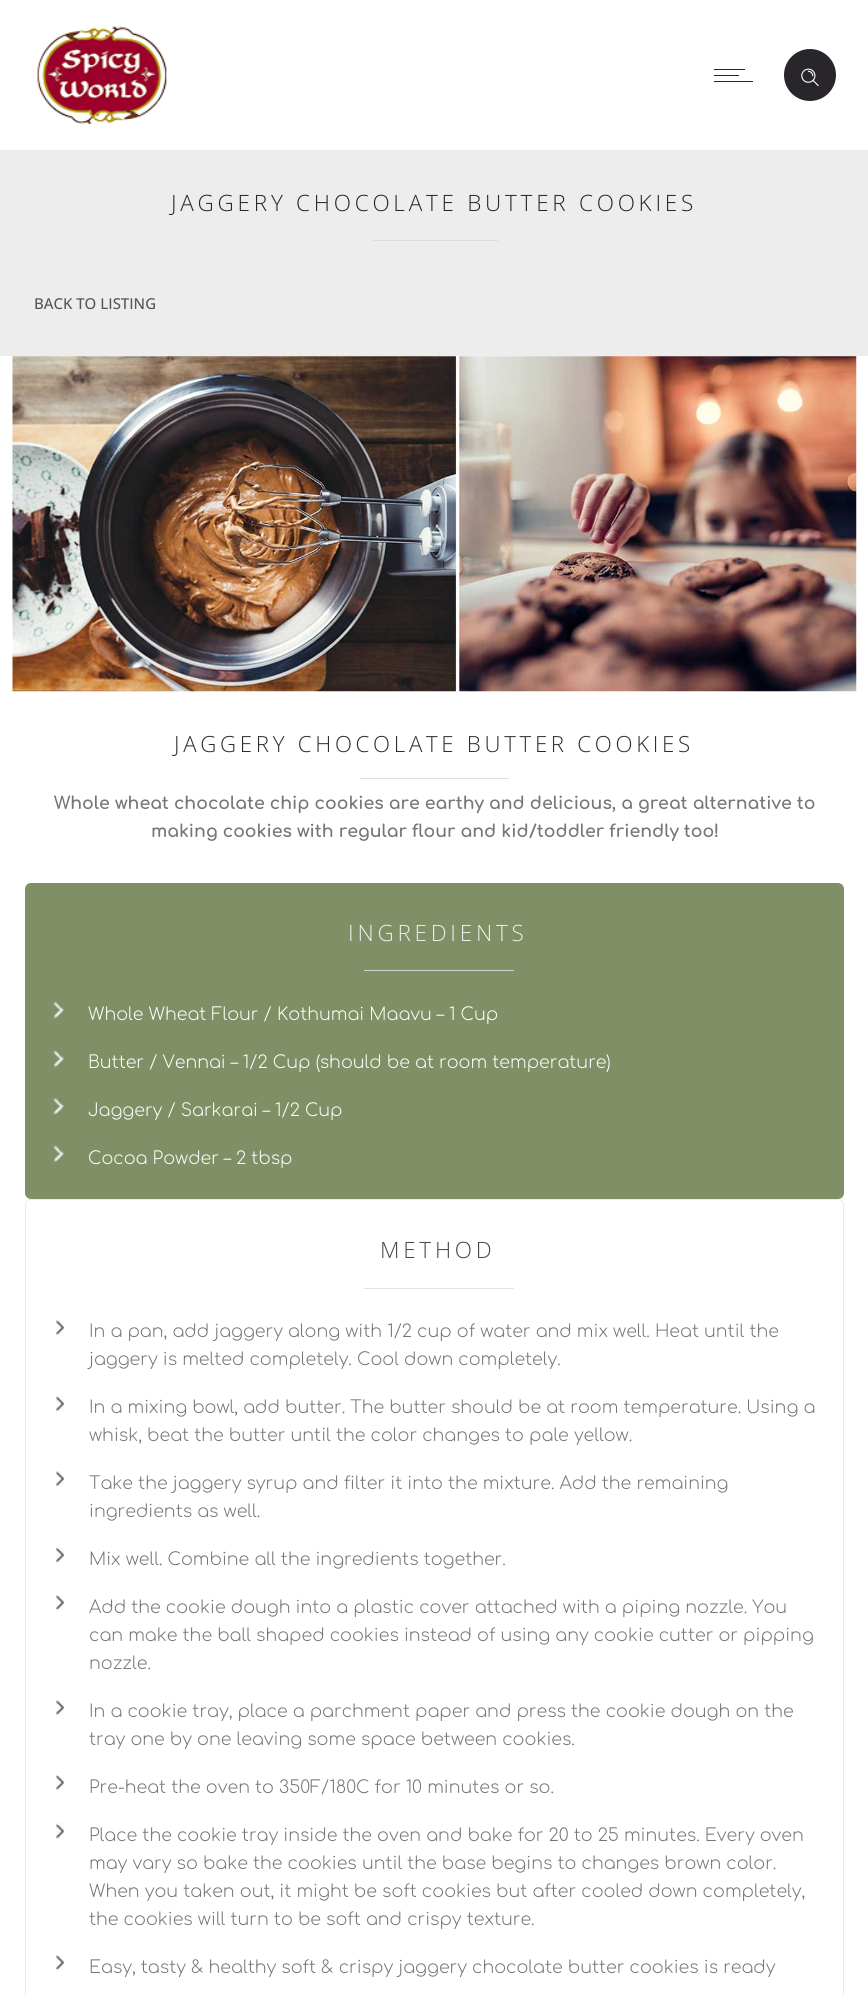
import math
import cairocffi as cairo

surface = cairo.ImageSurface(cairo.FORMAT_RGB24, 868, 1996)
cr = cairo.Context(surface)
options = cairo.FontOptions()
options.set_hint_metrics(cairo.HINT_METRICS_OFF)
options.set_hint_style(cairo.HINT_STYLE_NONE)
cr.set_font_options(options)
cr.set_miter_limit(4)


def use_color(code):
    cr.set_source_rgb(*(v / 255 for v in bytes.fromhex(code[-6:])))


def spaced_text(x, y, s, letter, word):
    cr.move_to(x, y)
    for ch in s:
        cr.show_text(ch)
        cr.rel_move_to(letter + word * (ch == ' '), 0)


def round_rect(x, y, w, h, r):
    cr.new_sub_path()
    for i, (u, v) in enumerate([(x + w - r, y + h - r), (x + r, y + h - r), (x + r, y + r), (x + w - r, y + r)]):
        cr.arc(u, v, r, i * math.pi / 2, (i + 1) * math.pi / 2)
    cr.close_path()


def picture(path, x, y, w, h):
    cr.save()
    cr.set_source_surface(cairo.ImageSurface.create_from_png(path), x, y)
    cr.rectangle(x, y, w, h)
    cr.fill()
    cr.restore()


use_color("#ffffff")
cr.paint()
use_color("#eae9ea")
cr.rectangle(0, 150, 868, 1)
cr.fill()
picture("img1.png", 37, 26, 130, 98)
use_color("#28262b")
cr.rectangle(714, 69, 31, 1)
cr.fill()
cr.rectangle(714, 75, 25, 1)
cr.fill()
cr.rectangle(714, 81, 39, 1)
cr.fill()
cr.arc(810, 75, 26, 0, 2 * math.pi)
cr.fill()
picture("img2.png", 801, 68, 18, 18)
use_color("#ededed")
cr.rectangle(0, 151, 868, 205)
cr.fill()
cr.select_font_face("Open Sans Light")
cr.set_font_size(22.5)
use_color("#28262b")
spaced_text(171, 211, "JAGGERY CHOCOLATE BUTTER COOKIES", 3.75, 0)
use_color("#dddddd")
cr.rectangle(373, 240, 125, 1)
cr.fill()
cr.select_font_face("Open Sans Medium")
cr.set_font_size(15)
use_color("#565656")
cr.move_to(34, 309)
cr.show_text("BACK TO LISTING")
picture("img3.png", 12, 356, 845, 336)
cr.select_font_face("Open Sans Light")
cr.set_font_size(22.25)
use_color("#2e2c31")
spaced_text(174, 752, "JAGGERY CHOCOLATE BUTTER COOKIES", 3.7, 0)
use_color("#dedede")
cr.rectangle(360, 778, 149, 1)
cr.fill()
cr.select_font_face("Comfortaa", cairo.FONT_SLANT_NORMAL, cairo.FONT_WEIGHT_BOLD)
cr.set_font_size(17.35)
use_color("#767676")
cr.move_to(54, 809)
cr.show_text("Whole wheat chocolate chip cookies are earthy and delicious, a great alternative to")
cr.move_to(151, 837)
cr.show_text("making cookies with regular flour and kid/toddler friendly too!")
use_color("#808f66")
round_rect(25, 883, 819, 316, 6)
cr.fill()
cr.select_font_face("Open Sans Light")
cr.set_font_size(22.5)
use_color("#eceee8")
spaced_text(348, 941, "INGREDIENTS", 3.75, 0)
use_color("#cfd1cb")
cr.rectangle(364, 970, 150, 1)
cr.fill()
picture("img4.png", 53, 1001, 11, 18)
cr.select_font_face("Comfortaa Light")
cr.set_font_size(17.5)
use_color("#ffffff")
cr.move_to(88, 1020)
cr.show_text("Whole Wheat Flour / Kothumai Maavu – 1 Cup")
picture("img5.png", 53, 1050, 11, 18)
cr.move_to(88, 1068)
cr.show_text("Butter / Vennai – 1/2 Cup (should be at room temperature)")
picture("img6.png", 53, 1097, 11, 18)
cr.move_to(88, 1116)
cr.show_text("Jaggery / Sarkarai – 1/2 Cup")
picture("img5.png", 53, 1145, 11, 18)
cr.move_to(88, 1164)
cr.show_text("Cocoa Powder – 2 tbsp")
round_rect(25.5, 1199.5, 818, 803, 5.5)
use_color("#ebebeb")
cr.set_line_width(1)
cr.stroke()
cr.select_font_face("Open Sans Light")
cr.set_font_size(22.5)
use_color("#48464a")
spaced_text(380, 1258, "METHOD", 3.75, 0)
use_color("#e2e2e2")
cr.rectangle(364, 1288, 150, 1)
cr.fill()
picture("img7.png", 56, 1320, 8, 16)
cr.select_font_face("Comfortaa Light")
cr.set_font_size(17.5)
use_color("#767676")
cr.move_to(89, 1337)
cr.show_text("In a pan, add jaggery along with 1/2 cup of water and mix well. Heat until the")
cr.move_to(89, 1365)
cr.show_text("jaggery is melted completely. Cool down completely.")
picture("img8.png", 56, 1396, 8, 16)
cr.move_to(89, 1413)
cr.show_text("In a mixing bowl, add butter. The butter should be at room temperature. Using a")
cr.move_to(89, 1441)
cr.show_text("whisk, beat the butter until the color changes to pale yellow.")
picture("img8.png", 56, 1471, 8, 16)
cr.move_to(89, 1489)
cr.show_text("Take the jaggery syrup and filter it into the mixture. Add the remaining")
cr.move_to(89, 1517)
cr.show_text("ingredients as well.")
picture("img9.png", 56, 1547, 8, 16)
cr.move_to(89, 1565)
cr.show_text("Mix well. Combine all the ingredients together.")
picture("img7.png", 56, 1595, 8, 16)
cr.move_to(89, 1613)
cr.show_text("Add the cookie dough into a plastic cover attached with a piping nozzle. You")
cr.move_to(89, 1641)
cr.show_text("can make the ball shaped cookies instead of using any cookie cutter or pipping")
cr.move_to(89, 1669)
cr.show_text("nozzle.")
picture("img7.png", 56, 1700, 8, 16)
cr.move_to(89, 1717)
cr.show_text("In a cookie tray, place a parchment paper and press the cookie dough on the")
cr.move_to(89, 1745)
cr.show_text("tray one by one leaving some space between cookies.")
picture("img7.png", 56, 1775, 8, 16)
cr.move_to(89, 1793)
cr.show_text("Pre-heat the oven to 350F/180C for 10 minutes or so.")
picture("img10.png", 56, 1823, 8, 16)
cr.move_to(89, 1841)
cr.show_text("Place the cookie tray inside the oven and bake for 20 to 25 minutes. Every oven")
cr.move_to(89, 1869)
cr.show_text("may vary so bake the cookies until the base begins to changes brown color.")
cr.move_to(89, 1897)
cr.show_text("When you taken out, it might be soft cookies but after cooled down completely,")
cr.move_to(89, 1925)
cr.show_text("the cookies will turn to be soft and crispy texture.")
picture("img7.png", 56, 1955, 8, 16)
cr.move_to(89, 1973)
cr.show_text("Easy, tasty & healthy soft & crispy jaggery chocolate butter cookies is ready")
surface.write_to_png("result.png")
